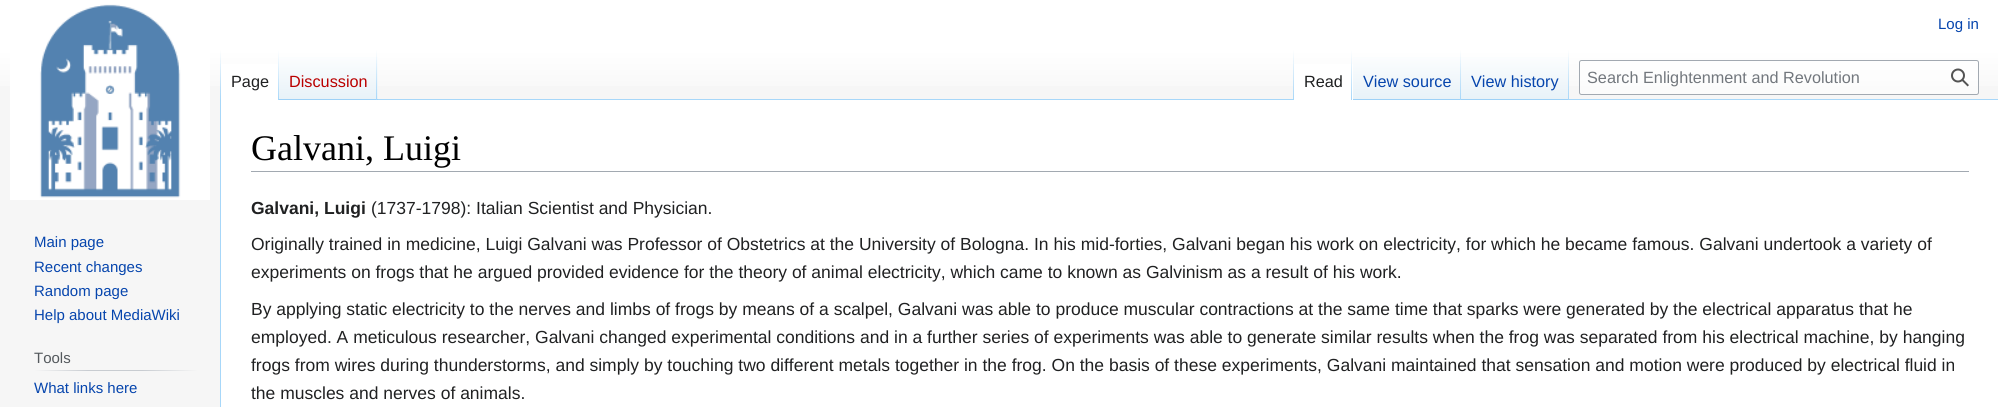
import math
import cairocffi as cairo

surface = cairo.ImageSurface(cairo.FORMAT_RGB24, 1998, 407)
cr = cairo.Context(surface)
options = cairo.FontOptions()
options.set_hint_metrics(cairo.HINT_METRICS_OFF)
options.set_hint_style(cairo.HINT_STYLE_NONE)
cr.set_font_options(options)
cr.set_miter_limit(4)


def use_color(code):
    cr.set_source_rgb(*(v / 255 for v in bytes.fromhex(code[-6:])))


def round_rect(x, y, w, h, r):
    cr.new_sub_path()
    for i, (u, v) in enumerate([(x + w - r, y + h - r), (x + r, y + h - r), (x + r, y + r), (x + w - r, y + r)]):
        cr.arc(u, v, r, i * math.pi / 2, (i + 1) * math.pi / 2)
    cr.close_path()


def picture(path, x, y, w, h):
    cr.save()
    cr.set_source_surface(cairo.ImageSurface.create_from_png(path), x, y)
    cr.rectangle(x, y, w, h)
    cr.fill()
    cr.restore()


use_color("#f6f6f6")
cr.paint()
gradient = cairo.LinearGradient(999, 0, 999, 100)
gradient.add_color_stop_rgba(0.5, 1, 1, 1, 1)
gradient.add_color_stop_rgba(1, 0.965, 0.965, 0.965, 1)
cr.set_source(gradient)
cr.rectangle(0, 0, 1998, 86)
cr.fill()
cr.select_font_face("Liberation Sans")
cr.set_font_size(15)
use_color("#0645ad")
cr.move_to(1938, 29)
cr.show_text("Log in")
use_color("#a7d7f9")
cr.rectangle(220, 99, 1, 308)
cr.fill()
gradient = cairo.LinearGradient(221, 50, 221, 100)
gradient.add_color_stop_rgba(0, 0.655, 0.843, 0.976, 0)
gradient.add_color_stop_rgba(1, 0.655, 0.843, 0.976, 1)
cr.set_source(gradient)
cr.rectangle(220, 50, 1, 50)
cr.fill()
use_color("#ffffff")
cr.rectangle(221, 64, 57, 36)
cr.fill()
gradient = cairo.LinearGradient(278, 50, 278, 100)
gradient.add_color_stop_rgba(0, 1, 1, 1, 1)
gradient.add_color_stop_rgba(1, 0.655, 0.843, 0.976, 1)
cr.set_source(gradient)
cr.rectangle(278, 50, 1, 50)
cr.fill()
cr.set_font_size(16.25)
use_color("#202122")
cr.move_to(231, 87)
cr.show_text("Page")
gradient = cairo.LinearGradient(328, 100, 328, 50)
gradient.add_color_stop_rgba(0, 0.467, 0.757, 0.965, 1)
gradient.add_color_stop_rgba(0.03, 0.91, 0.949, 0.973, 1)
gradient.add_color_stop_rgba(1, 1, 1, 1, 1)
cr.set_source(gradient)
cr.rectangle(279, 57, 99, 43)
cr.fill()
gradient = cairo.LinearGradient(377, 50, 377, 100)
gradient.add_color_stop_rgba(0, 0.655, 0.843, 0.976, 0)
gradient.add_color_stop_rgba(1, 0.655, 0.843, 0.976, 1)
cr.set_source(gradient)
cr.rectangle(376, 50, 1, 50)
cr.fill()
use_color("#ba0000")
cr.move_to(289, 87)
cr.show_text("Discussion")
use_color("#a7d7f9")
cr.rectangle(378, 99, 1620, 1)
cr.fill()
gradient = cairo.LinearGradient(1293, 50, 1293, 100)
gradient.add_color_stop_rgba(0, 0.655, 0.843, 0.976, 0)
gradient.add_color_stop_rgba(1, 0.655, 0.843, 0.976, 1)
cr.set_source(gradient)
cr.rectangle(1293, 50, 1, 50)
cr.fill()
use_color("#ffffff")
cr.rectangle(1294, 64, 59, 36)
cr.fill()
gradient = cairo.LinearGradient(1352, 50, 1352, 100)
gradient.add_color_stop_rgba(0, 1, 1, 1, 1)
gradient.add_color_stop_rgba(1, 0.655, 0.843, 0.976, 1)
cr.set_source(gradient)
cr.rectangle(1351, 50, 1, 50)
cr.fill()
use_color("#202122")
cr.move_to(1304, 87)
cr.show_text("Read")
gradient = cairo.LinearGradient(1407, 100, 1407, 50)
gradient.add_color_stop_rgba(0, 0.467, 0.757, 0.965, 1)
gradient.add_color_stop_rgba(0.03, 0.91, 0.949, 0.973, 1)
gradient.add_color_stop_rgba(1, 1, 1, 1, 1)
cr.set_source(gradient)
cr.rectangle(1353, 57, 108, 43)
cr.fill()
gradient = cairo.LinearGradient(1461, 50, 1461, 100)
gradient.add_color_stop_rgba(0, 0.655, 0.843, 0.976, 0)
gradient.add_color_stop_rgba(1, 0.655, 0.843, 0.976, 1)
cr.set_source(gradient)
cr.rectangle(1460, 50, 1, 50)
cr.fill()
use_color("#0645ad")
cr.move_to(1363, 87)
cr.show_text("View source")
gradient = cairo.LinearGradient(1515, 100, 1515, 50)
gradient.add_color_stop_rgba(0, 0.467, 0.757, 0.965, 1)
gradient.add_color_stop_rgba(0.03, 0.91, 0.949, 0.973, 1)
gradient.add_color_stop_rgba(1, 1, 1, 1, 1)
cr.set_source(gradient)
cr.rectangle(1461, 57, 108, 43)
cr.fill()
gradient = cairo.LinearGradient(1568, 50, 1568, 100)
gradient.add_color_stop_rgba(0, 0.655, 0.843, 0.976, 0)
gradient.add_color_stop_rgba(1, 0.655, 0.843, 0.976, 1)
cr.set_source(gradient)
cr.rectangle(1568, 50, 1, 50)
cr.fill()
use_color("#0645ad")
cr.move_to(1471, 87)
cr.show_text("View history")
cr.set_source_rgba(1, 1, 1, 0.5)
round_rect(1579.5, 60.5, 399, 34, 2)
cr.fill_preserve()
use_color("#a2a9b1")
cr.set_line_width(1)
cr.stroke()
use_color("#72777d")
cr.move_to(1587, 83)
cr.show_text("Search Enlightenment and Revolution")
picture("img1.png", 1951, 68, 18, 19)
picture("img2.png", 10, 4, 200, 196)
cr.set_font_size(15)
use_color("#0645ad")
cr.move_to(34, 247)
cr.show_text("Main page")
cr.move_to(34, 272)
cr.show_text("Recent changes")
cr.move_to(34, 296)
cr.show_text("Random page")
cr.move_to(34, 320)
cr.show_text("Help about MediaWiki")
gradient = cairo.LinearGradient(34, 371, 198, 371)
gradient.add_color_stop_rgba(0, 0.965, 0.965, 0.965, 1)
gradient.add_color_stop_rgba(0.33, 0.784, 0.8, 0.82, 1)
gradient.add_color_stop_rgba(0.66, 0.784, 0.8, 0.82, 1)
gradient.add_color_stop_rgba(1, 0.965, 0.965, 0.965, 1)
cr.set_source(gradient)
cr.rectangle(34, 370, 164, 1)
cr.fill()
use_color("#54595d")
cr.move_to(34, 363)
cr.show_text("Tools")
use_color("#0645ad")
cr.move_to(34, 393)
cr.show_text("What links here")
use_color("#ffffff")
cr.rectangle(221, 100, 1777, 307)
cr.fill()
use_color("#a2a9b1")
cr.rectangle(251, 171, 1718, 1)
cr.fill()
cr.select_font_face("Liberation Serif")
cr.set_font_size(36)
use_color("#000000")
cr.move_to(251, 160)
cr.show_text("Galvani, Luigi")
cr.select_font_face("Liberation Sans", cairo.FONT_SLANT_NORMAL, cairo.FONT_WEIGHT_BOLD)
cr.set_font_size(17.5)
use_color("#202122")
cr.move_to(251, 214)
cr.show_text("Galvani, Luigi")
cr.select_font_face("Liberation Sans")
cr.move_to(371, 214)
cr.show_text("(1737-1798): Italian Scientist and Physician.")
cr.move_to(251, 250)
cr.show_text("Originally trained in medicine, Luigi Galvani was Professor of Obstetrics at the University of Bologna. In his mid-forties, Galvani began his work on electricity, for which he became famous. Galvani undertook a variety of")
cr.move_to(251, 278)
cr.show_text("experiments on frogs that he argued provided evidence for the theory of animal electricity, which came to known as Galvinism as a result of his work.")
cr.move_to(251, 315)
cr.show_text("By applying static electricity to the nerves and limbs of frogs by means of a scalpel, Galvani was able to produce muscular contractions at the same time that sparks were generated by the electrical apparatus that he")
cr.move_to(251, 343)
cr.show_text("employed. A meticulous researcher, Galvani changed experimental conditions and in a further series of experiments was able to generate similar results when the frog was separated from his electrical machine, by hanging")
cr.move_to(251, 371)
cr.show_text("frogs from wires during thunderstorms, and simply by touching two different metals together in the frog. On the basis of these experiments, Galvani maintained that sensation and motion were produced by electrical fluid in")
cr.move_to(251, 399)
cr.show_text("the muscles and nerves of animals.")
surface.write_to_png("result.png")
